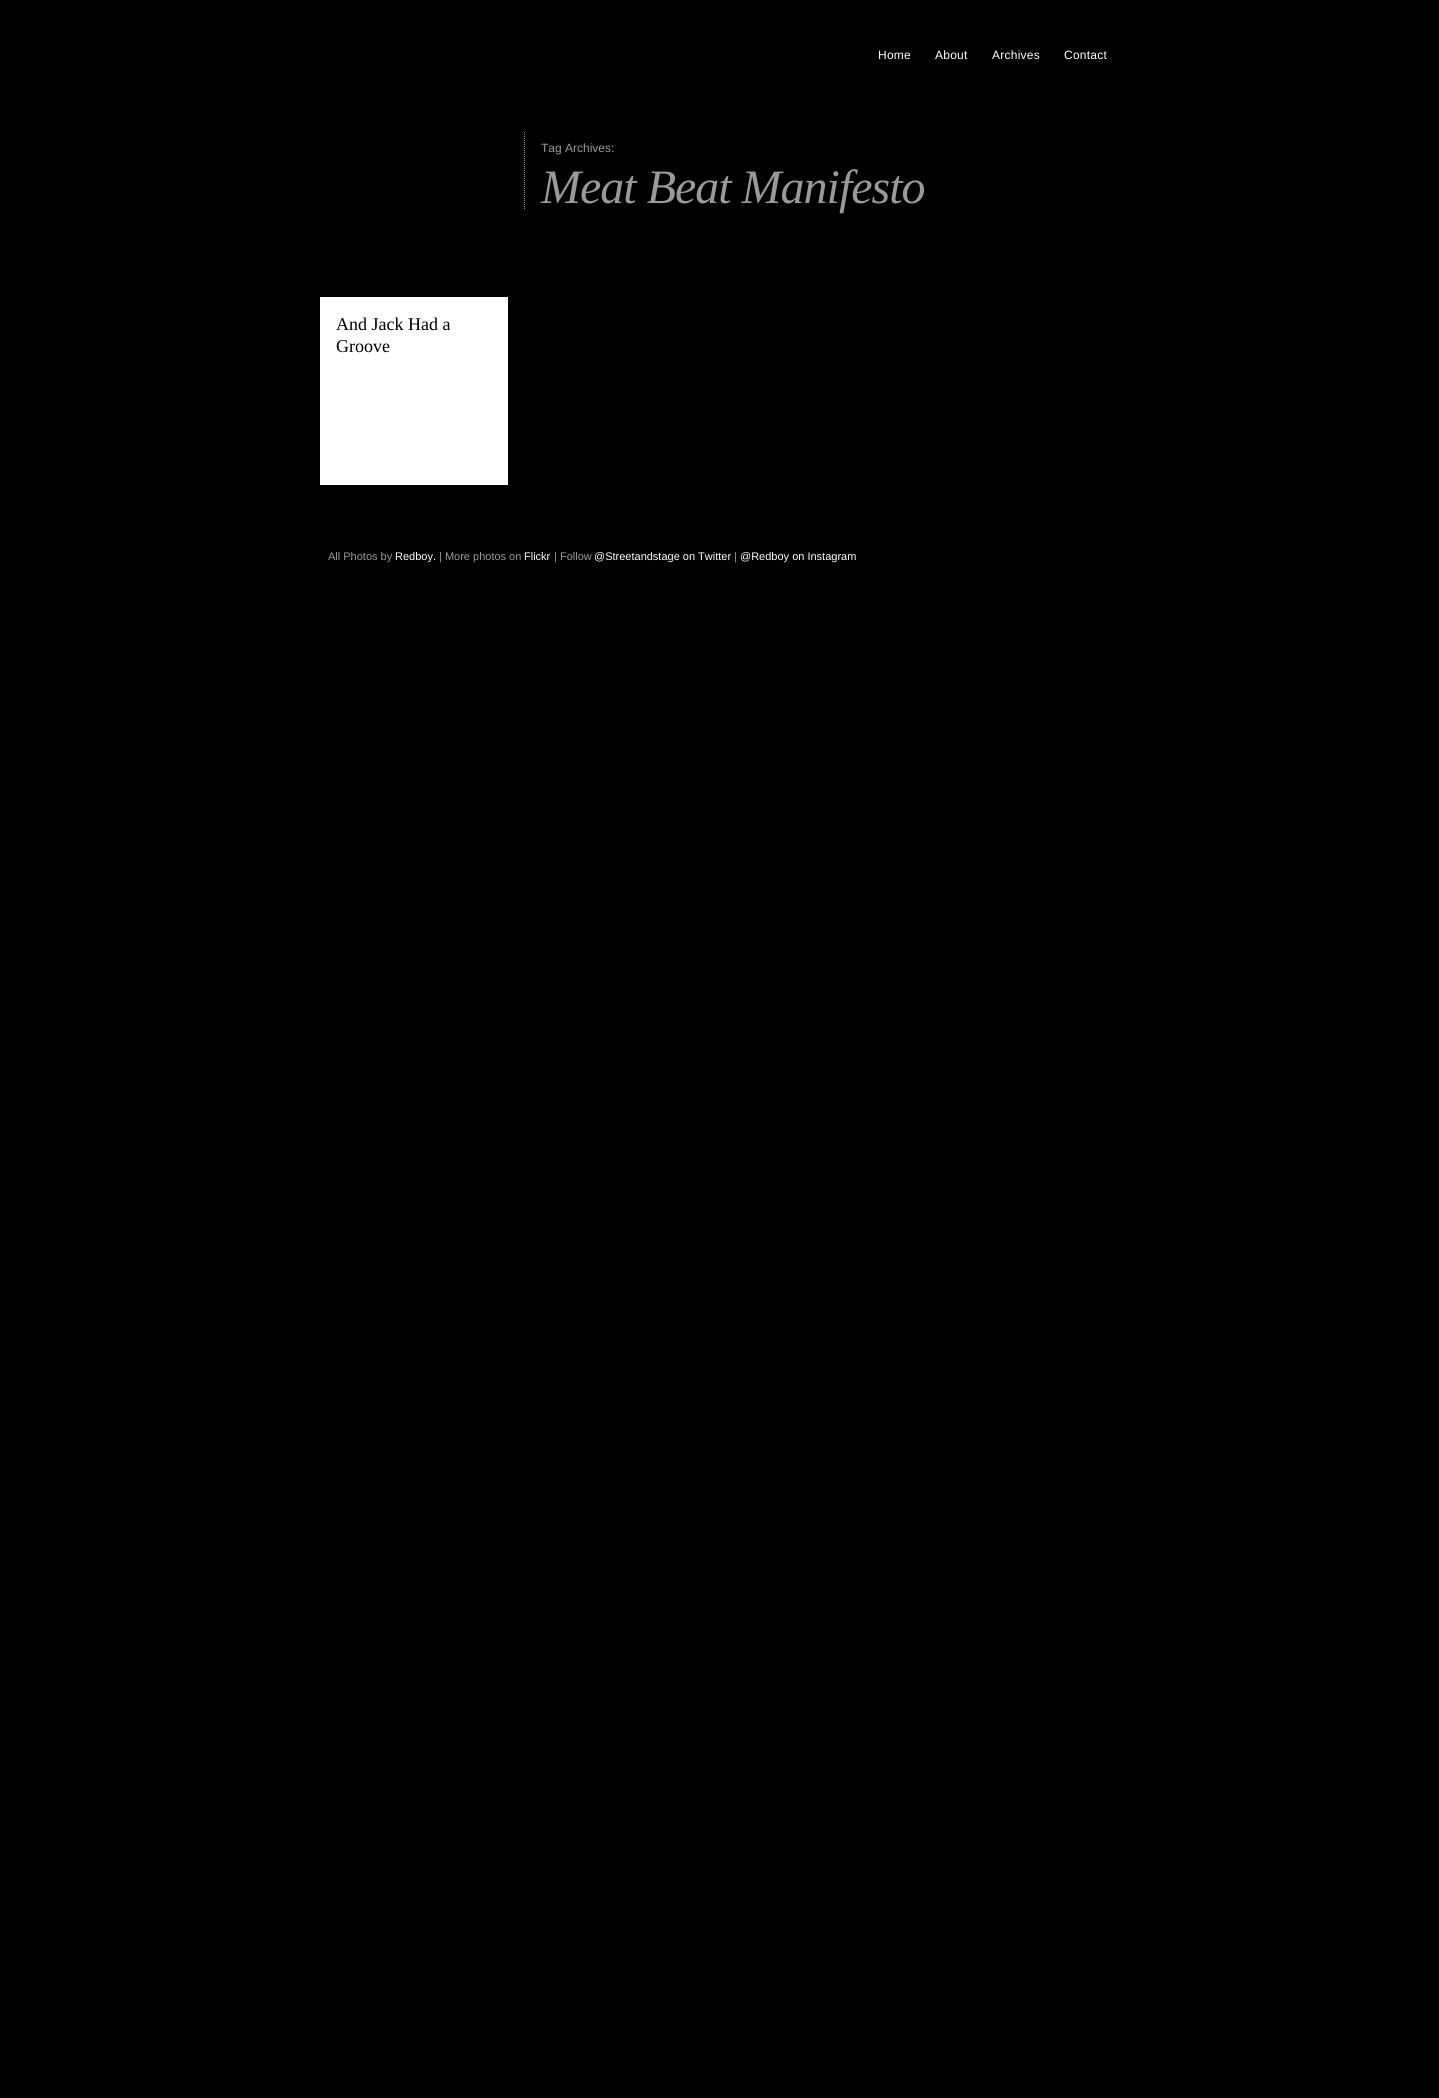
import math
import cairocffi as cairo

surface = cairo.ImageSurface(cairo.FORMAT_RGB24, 1439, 2098)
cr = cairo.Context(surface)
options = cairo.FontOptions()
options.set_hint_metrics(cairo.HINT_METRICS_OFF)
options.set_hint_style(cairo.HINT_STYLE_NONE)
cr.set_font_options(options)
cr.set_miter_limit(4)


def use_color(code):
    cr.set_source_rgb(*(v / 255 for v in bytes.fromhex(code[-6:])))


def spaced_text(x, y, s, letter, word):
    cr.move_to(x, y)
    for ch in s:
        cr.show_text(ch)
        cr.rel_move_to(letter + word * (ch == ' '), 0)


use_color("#000000")
cr.paint()
cr.select_font_face("Liberation Sans")
cr.set_font_size(12)
use_color("#ffffff")
spaced_text(878, 59, "Home", 0.25, 0)
spaced_text(935, 59, "About", 0.25, 0)
spaced_text(992, 59, "Archives", 0.25, 0)
spaced_text(1064, 59, "Contact", 0.25, 0)
cr.new_path()
cr.move_to(524.5, 132)
cr.line_to(524.5, 209)
use_color("#999999")
cr.set_line_width(1)
cr.set_dash([1, 1])
cr.stroke()
cr.move_to(541, 152)
cr.show_text("Tag Archives:")
cr.select_font_face("Liberation Serif", cairo.FONT_SLANT_ITALIC)
cr.set_font_size(48)
spaced_text(541, 203, "Meat Beat Manifesto", -1, 0)
use_color("#ffffff")
cr.rectangle(320, 297, 188, 188)
cr.fill()
cr.select_font_face("Liberation Serif")
cr.set_font_size(18)
use_color("#000000")
cr.move_to(336, 330)
cr.show_text("And Jack Had a")
cr.move_to(336, 352)
cr.show_text("Groove")
cr.select_font_face("Liberation Sans")
cr.set_font_size(11)
use_color("#999999")
cr.move_to(328, 560)
cr.show_text("All Photos by")
use_color("#ffffff")
cr.move_to(395, 560)
cr.show_text("Redboy.")
use_color("#999999")
cr.move_to(439, 560)
cr.show_text("| More photos on")
use_color("#ffffff")
cr.move_to(524, 560)
cr.show_text("Flickr")
use_color("#999999")
cr.move_to(554, 560)
cr.show_text("| Follow")
use_color("#ffffff")
cr.move_to(594, 560)
cr.show_text("@Streetandstage on Twitter")
use_color("#999999")
cr.move_to(734, 560)
cr.show_text("|")
use_color("#ffffff")
cr.move_to(740, 560)
cr.show_text("@Redboy on Instagram")
surface.write_to_png("result.png")
